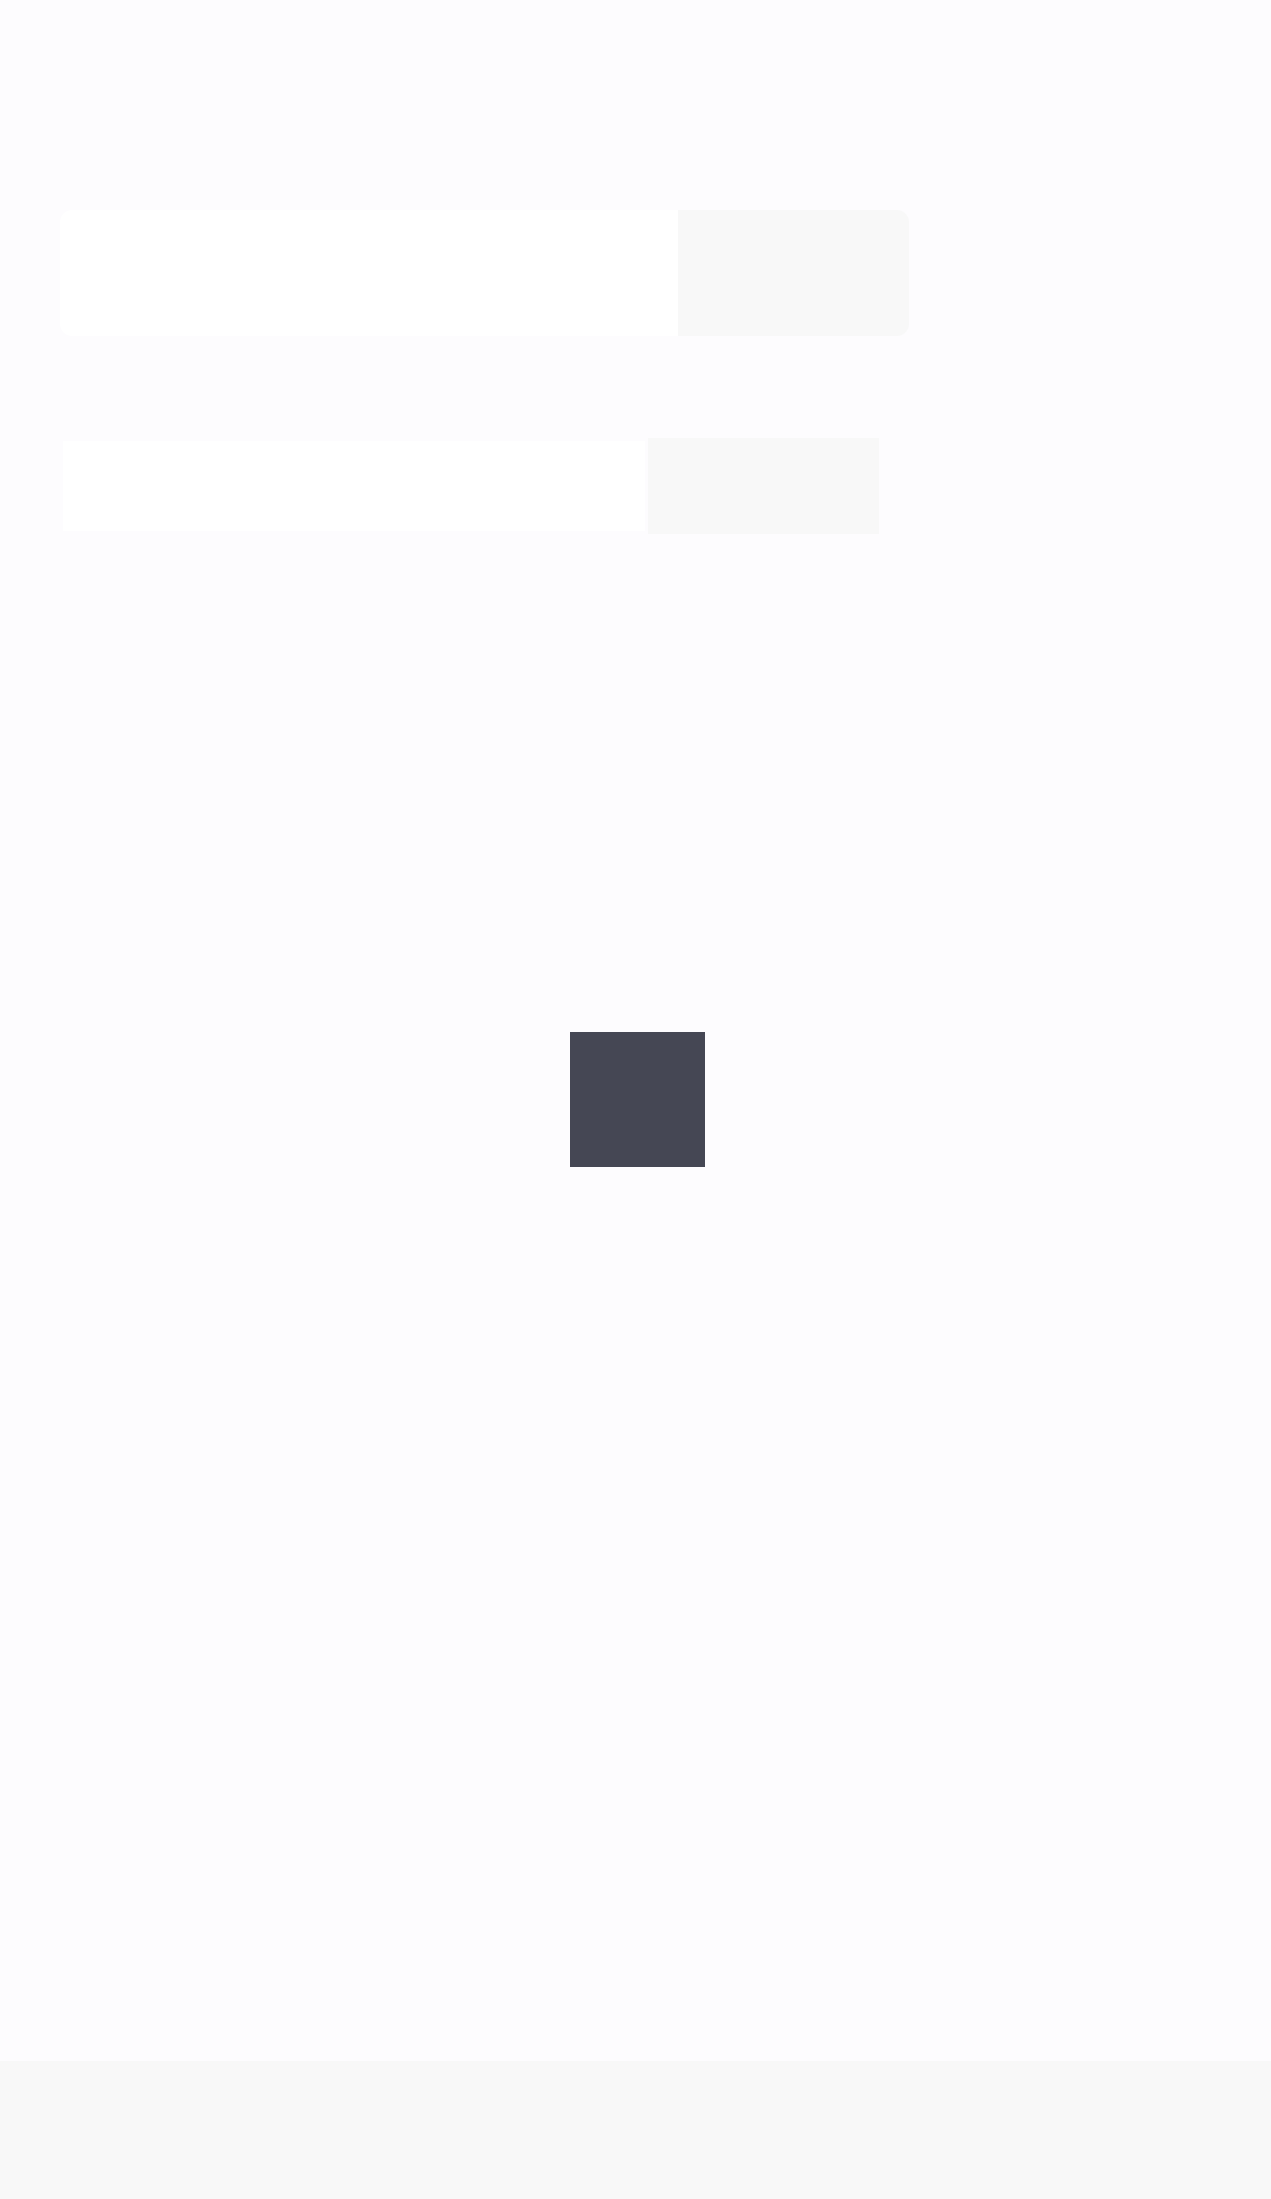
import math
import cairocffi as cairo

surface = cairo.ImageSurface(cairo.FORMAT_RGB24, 1271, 2199)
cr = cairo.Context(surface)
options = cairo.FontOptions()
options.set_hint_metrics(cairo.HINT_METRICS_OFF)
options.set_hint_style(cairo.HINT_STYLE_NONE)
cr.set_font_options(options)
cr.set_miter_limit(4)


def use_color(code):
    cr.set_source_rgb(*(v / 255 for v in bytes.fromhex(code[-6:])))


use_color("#fdfcfe")
cr.paint()
use_color("#ffffff")
cr.new_path()
cr.move_to(72, 210)
cr.line_to(678, 210)
cr.line_to(678, 336)
cr.line_to(72, 336)
cr.curve_to(65.5, 336, 60, 330.5, 60, 324)
cr.line_to(60, 222)
cr.curve_to(60, 215.5, 65.5, 210, 72, 210)
cr.close_path()
cr.fill()
use_color("#f8f8f8")
cr.new_path()
cr.move_to(678, 210)
cr.line_to(897, 210)
cr.curve_to(903.5, 210, 909, 215.5, 909, 222)
cr.line_to(909, 324)
cr.curve_to(909, 330.5, 903.5, 336, 897, 336)
cr.line_to(678, 336)
cr.close_path()
cr.fill()
use_color("#ffffff")
cr.rectangle(63, 441, 582, 90)
cr.fill()
use_color("#f8f8f8")
cr.rectangle(648, 438, 231, 96)
cr.fill()
use_color("#454754")
cr.rectangle(570, 1032, 135, 135)
cr.fill()
use_color("#f8f8f8")
cr.rectangle(0, 2061, 1271, 138)
cr.fill()
surface.write_to_png("result.png")
